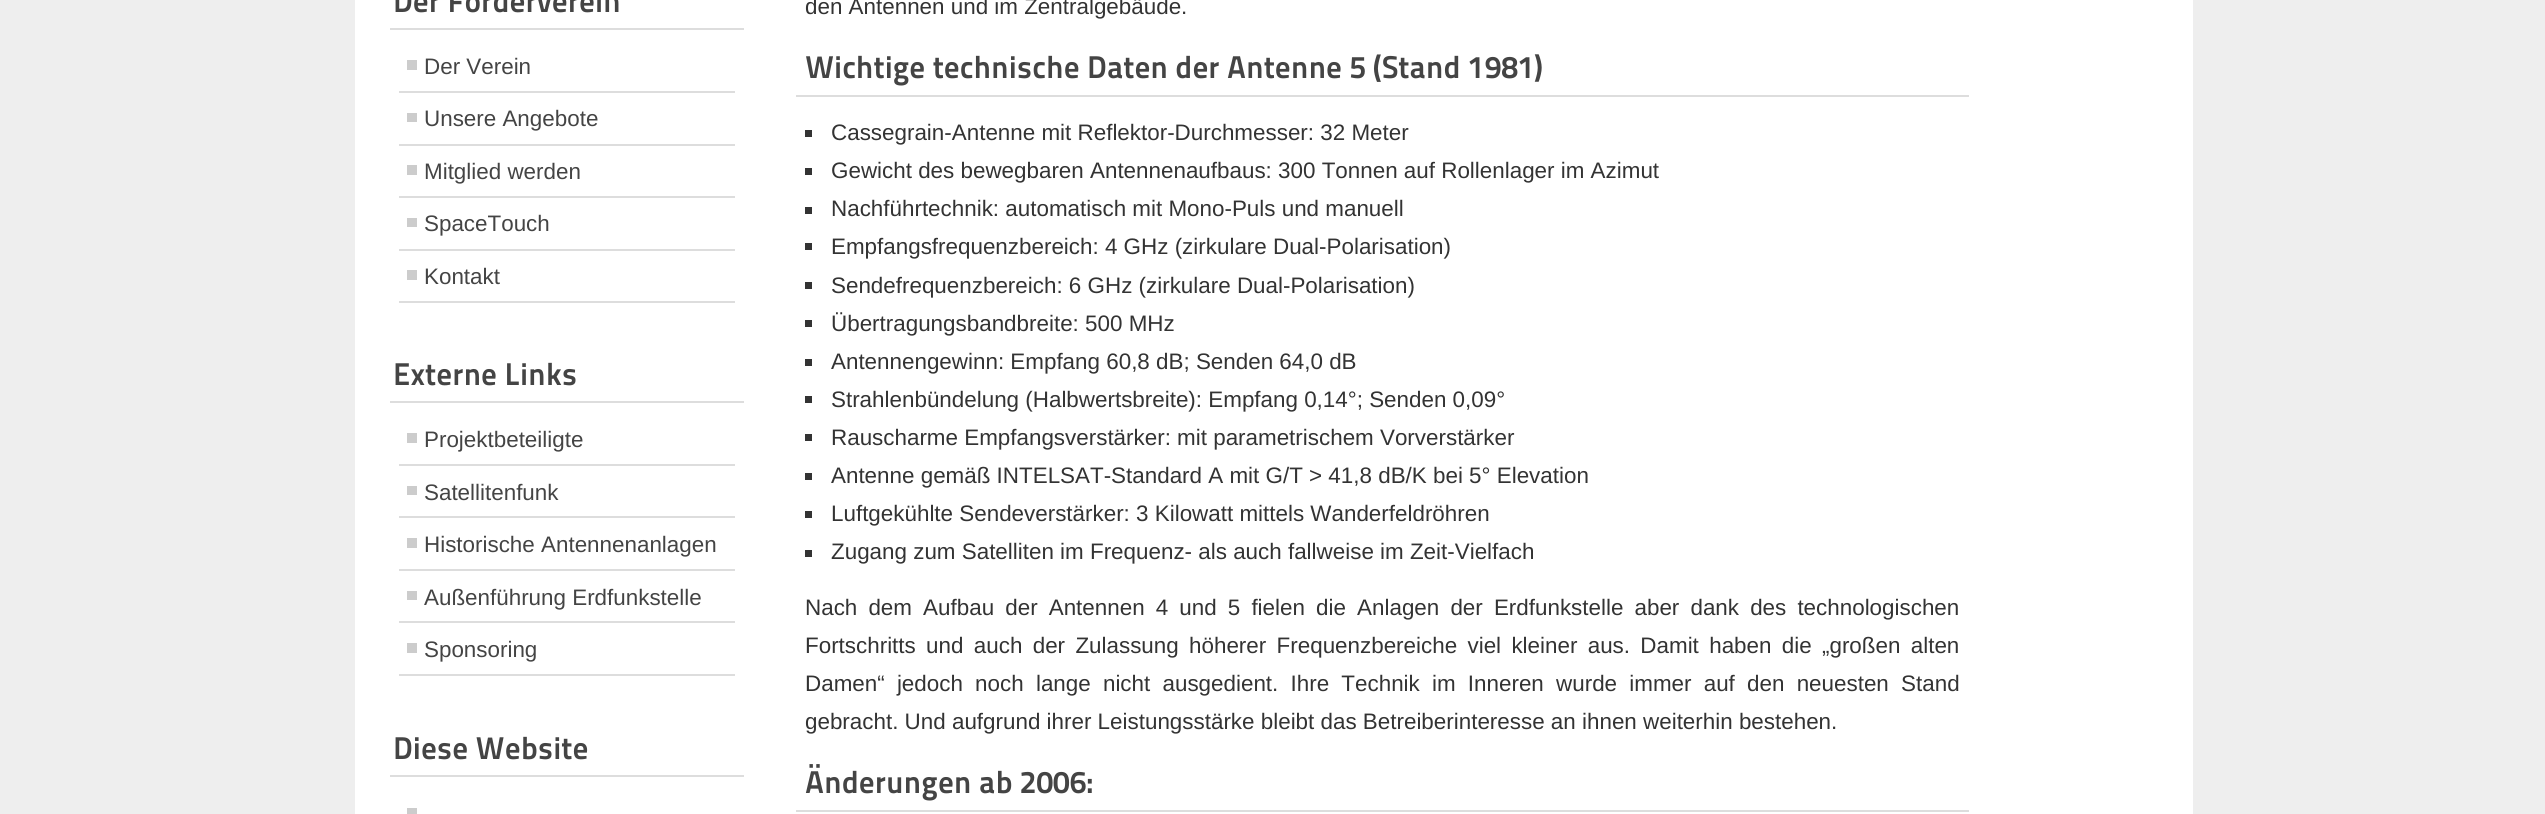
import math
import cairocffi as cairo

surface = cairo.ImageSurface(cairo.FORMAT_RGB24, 2545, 814)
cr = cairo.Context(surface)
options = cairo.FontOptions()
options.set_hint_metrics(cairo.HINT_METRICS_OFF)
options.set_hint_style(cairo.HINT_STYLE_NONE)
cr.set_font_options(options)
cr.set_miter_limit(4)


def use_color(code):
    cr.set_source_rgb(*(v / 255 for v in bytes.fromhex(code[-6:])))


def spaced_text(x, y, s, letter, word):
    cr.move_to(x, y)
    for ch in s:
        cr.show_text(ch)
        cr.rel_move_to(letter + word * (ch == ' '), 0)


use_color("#eeeeee")
cr.paint()
use_color("#ffffff")
cr.rectangle(355, 0, 1838, 814)
cr.fill()
use_color("#dddddd")
cr.rectangle(390, 28, 354, 2)
cr.fill()
cr.select_font_face("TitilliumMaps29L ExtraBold")
cr.set_font_size(31.4)
use_color("#444444")
cr.move_to(393, 12)
cr.show_text("Der Förderverein")
use_color("#dddddd")
cr.rectangle(399, 91, 336, 2)
cr.fill()
use_color("#cccccc")
cr.rectangle(407, 60, 10, 10)
cr.fill()
cr.select_font_face("Liberation Sans")
cr.set_font_size(22.4)
use_color("#444444")
cr.move_to(424, 74)
cr.show_text("Der Verein")
use_color("#dddddd")
cr.rectangle(399, 144, 336, 2)
cr.fill()
use_color("#cccccc")
cr.rectangle(407, 113, 10, 9)
cr.fill()
use_color("#444444")
cr.move_to(424, 126)
cr.show_text("Unsere Angebote")
use_color("#dddddd")
cr.rectangle(399, 196, 336, 2)
cr.fill()
use_color("#cccccc")
cr.rectangle(407, 165, 10, 10)
cr.fill()
use_color("#444444")
cr.move_to(424, 179)
cr.show_text("Mitglied werden")
use_color("#dddddd")
cr.rectangle(399, 249, 336, 2)
cr.fill()
use_color("#cccccc")
cr.rectangle(407, 218, 10, 9)
cr.fill()
use_color("#444444")
cr.move_to(424, 231)
cr.show_text("SpaceTouch")
use_color("#dddddd")
cr.rectangle(399, 301, 336, 2)
cr.fill()
use_color("#cccccc")
cr.rectangle(407, 270, 10, 10)
cr.fill()
use_color("#444444")
cr.move_to(424, 284)
cr.show_text("Kontakt")
use_color("#dddddd")
cr.rectangle(390, 401, 354, 2)
cr.fill()
cr.select_font_face("TitilliumMaps29L ExtraBold")
cr.set_font_size(31.4)
use_color("#444444")
cr.move_to(393, 385)
cr.show_text("Externe Links")
use_color("#dddddd")
cr.rectangle(399, 464, 336, 2)
cr.fill()
use_color("#cccccc")
cr.rectangle(407, 433, 10, 10)
cr.fill()
cr.select_font_face("Liberation Sans")
cr.set_font_size(22.4)
use_color("#444444")
cr.move_to(424, 447)
cr.show_text("Projektbeteiligte")
use_color("#dddddd")
cr.rectangle(399, 516, 336, 2)
cr.fill()
use_color("#cccccc")
cr.rectangle(407, 486, 10, 9)
cr.fill()
use_color("#444444")
cr.move_to(424, 500)
cr.show_text("Satellitenfunk")
use_color("#dddddd")
cr.rectangle(399, 569, 336, 2)
cr.fill()
use_color("#cccccc")
cr.rectangle(407, 538, 10, 10)
cr.fill()
use_color("#444444")
cr.move_to(424, 552)
cr.show_text("Historische Antennenanlagen")
use_color("#dddddd")
cr.rectangle(399, 621, 336, 2)
cr.fill()
use_color("#cccccc")
cr.rectangle(407, 591, 10, 9)
cr.fill()
use_color("#444444")
cr.move_to(424, 605)
cr.show_text("Außenführung Erdfunkstelle")
use_color("#dddddd")
cr.rectangle(399, 674, 336, 2)
cr.fill()
use_color("#cccccc")
cr.rectangle(407, 643, 10, 10)
cr.fill()
use_color("#444444")
cr.move_to(424, 657)
cr.show_text("Sponsoring")
use_color("#dddddd")
cr.rectangle(390, 775, 354, 2)
cr.fill()
cr.select_font_face("TitilliumMaps29L ExtraBold")
cr.set_font_size(31.4)
use_color("#444444")
cr.move_to(393, 759)
cr.show_text("Diese Website")
use_color("#cccccc")
cr.rectangle(407, 808, 10, 6)
cr.fill()
cr.select_font_face("Liberation Sans")
cr.set_font_size(22.4)
use_color("#333333")
cr.move_to(805, 14)
cr.show_text("den Antennen und im Zentralgebäude.")
use_color("#dddddd")
cr.rectangle(796, 95, 1173, 2)
cr.fill()
cr.select_font_face("TitilliumMaps29L ExtraBold")
cr.set_font_size(31.4)
use_color("#444444")
cr.move_to(805, 78)
cr.show_text("Wichtige technische Daten der Antenne 5 (Stand 1981)")
use_color("#333333")
cr.rectangle(805, 130, 7, 7)
cr.fill()
cr.select_font_face("Liberation Sans")
cr.set_font_size(22.4)
cr.move_to(831, 140)
cr.show_text("Cassegrain-Antenne mit Reflektor-Durchmesser: 32 Meter")
cr.rectangle(805, 168, 7, 7)
cr.fill()
cr.move_to(831, 178)
cr.show_text("Gewicht des bewegbaren Antennenaufbaus: 300 Tonnen auf Rollenlager im Azimut")
cr.rectangle(805, 207, 7, 7)
cr.fill()
cr.move_to(831, 216)
cr.show_text("Nachführtechnik: automatisch mit Mono-Puls und manuell")
cr.rectangle(805, 243, 7, 7)
cr.fill()
cr.move_to(831, 254)
cr.show_text("Empfangsfrequenzbereich: 4 GHz (zirkulare Dual-Polarisation)")
cr.rectangle(805, 282, 7, 7)
cr.fill()
cr.move_to(831, 293)
cr.show_text("Sendefrequenzbereich: 6 GHz (zirkulare Dual-Polarisation)")
cr.rectangle(805, 320, 7, 7)
cr.fill()
cr.move_to(831, 331)
cr.show_text("Übertragungsbandbreite: 500 MHz")
cr.rectangle(805, 359, 7, 7)
cr.fill()
cr.move_to(831, 369)
cr.show_text("Antennengewinn: Empfang 60,8 dB; Senden 64,0 dB")
cr.rectangle(805, 396, 7, 7)
cr.fill()
cr.move_to(831, 407)
cr.show_text("Strahlenbündelung (Halbwertsbreite): Empfang 0,14°; Senden 0,09°")
cr.rectangle(805, 434, 7, 7)
cr.fill()
cr.move_to(831, 445)
cr.show_text("Rauscharme Empfangsverstärker: mit parametrischem Vorverstärker")
cr.rectangle(805, 473, 7, 7)
cr.fill()
cr.move_to(831, 483)
cr.show_text("Antenne gemäß INTELSAT-Standard A mit G/T > 41,8 dB/K bei 5° Elevation")
cr.rectangle(805, 511, 7, 7)
cr.fill()
cr.move_to(831, 521)
cr.show_text("Luftgekühlte Sendeverstärker: 3 Kilowatt mittels Wanderfeldröhren")
cr.rectangle(805, 550, 7, 7)
cr.fill()
cr.move_to(831, 559)
cr.show_text("Zugang zum Satelliten im Frequenz- als auch fallweise im Zeit-Vielfach")
spaced_text(805, 615, "Nach dem Aufbau der Antennen 4 und 5 fielen die Anlagen der Erdfunkstelle aber dank des technologischen", 0, 4.9)
spaced_text(805, 653, "Fortschritts und auch der Zulassung höherer Frequenzbereiche viel kleiner aus. Damit haben die „großen alten", 0, 4.1)
spaced_text(805, 691, "Damen“ jedoch noch lange nicht ausgedient. Ihre Technik im Inneren wurde immer auf den neuesten Stand", 0, 6)
cr.move_to(805, 729)
cr.show_text("gebracht. Und aufgrund ihrer Leistungsstärke bleibt das Betreiberinteresse an ihnen weiterhin bestehen.")
use_color("#dddddd")
cr.rectangle(796, 810, 1173, 2)
cr.fill()
cr.select_font_face("TitilliumMaps29L ExtraBold")
cr.set_font_size(31.4)
use_color("#444444")
cr.move_to(805, 793)
cr.show_text("Änderungen ab 2006:")
surface.write_to_png("result.png")
